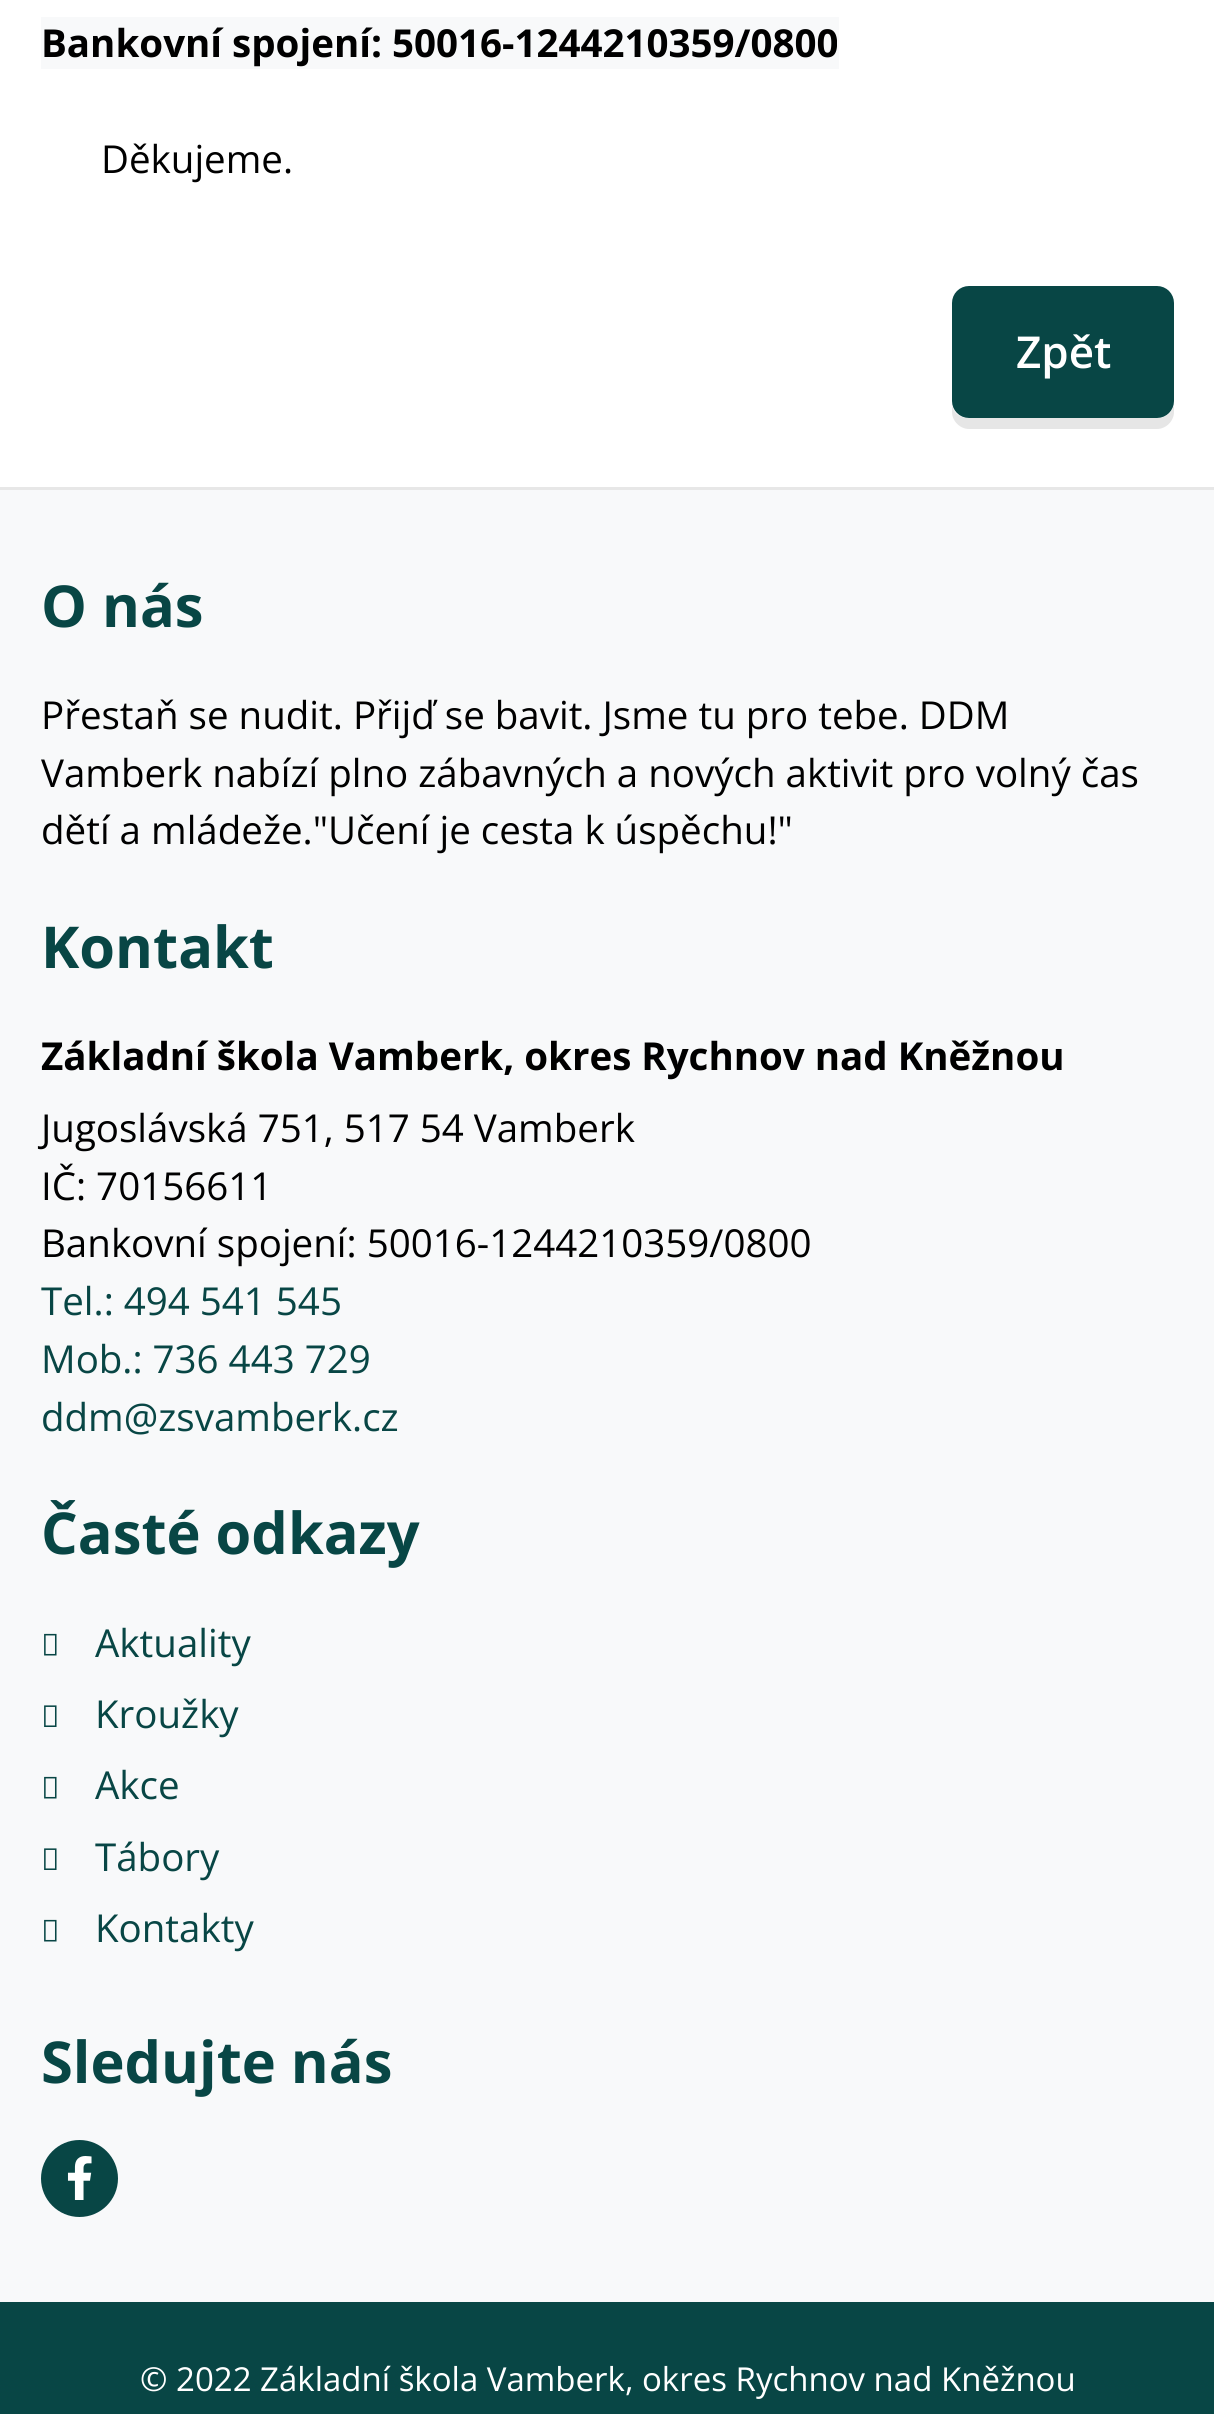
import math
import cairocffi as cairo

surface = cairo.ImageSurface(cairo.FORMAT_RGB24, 1214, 2414)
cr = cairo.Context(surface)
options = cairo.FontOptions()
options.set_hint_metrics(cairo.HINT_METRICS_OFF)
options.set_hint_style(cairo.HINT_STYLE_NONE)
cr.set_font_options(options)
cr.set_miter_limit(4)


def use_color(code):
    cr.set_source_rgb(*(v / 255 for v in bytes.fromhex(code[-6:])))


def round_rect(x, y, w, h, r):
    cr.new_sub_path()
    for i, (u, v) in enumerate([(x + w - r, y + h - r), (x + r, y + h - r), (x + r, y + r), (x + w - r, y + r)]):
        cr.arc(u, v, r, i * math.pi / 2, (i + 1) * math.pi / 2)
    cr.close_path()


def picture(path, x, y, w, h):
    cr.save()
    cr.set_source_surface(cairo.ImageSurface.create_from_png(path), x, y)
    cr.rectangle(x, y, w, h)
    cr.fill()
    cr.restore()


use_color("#ffffff")
cr.paint()
use_color("#f8f9fa")
cr.rectangle(41, 17, 798, 52)
cr.fill()
cr.select_font_face("Open Sans", cairo.FONT_SLANT_NORMAL, cairo.FONT_WEIGHT_BOLD)
cr.set_font_size(38.5)
use_color("#000000")
cr.move_to(41, 57)
cr.show_text("Bankovní spojení: 50016-1244210359/0800")
cr.select_font_face("Open Sans")
cr.move_to(101, 173)
cr.show_text("Děkujeme.")
use_color("#e6e6e6")
cr.new_path()
cr.move_to(952, 406)
cr.line_to(952, 412)
cr.curve_to(952, 421, 960, 429, 969, 429)
cr.line_to(1157, 429)
cr.curve_to(1166, 429, 1174, 421, 1174, 412)
cr.line_to(1174, 404)
cr.curve_to(1173, 412, 1166, 418, 1158, 418)
cr.line_to(968, 418)
cr.curve_to(960, 418, 954, 413, 952, 406)
cr.close_path()
cr.fill()
use_color("#084645")
round_rect(956, 290, 214, 124, 13)
cr.fill_preserve()
cr.set_line_width(8)
cr.stroke()
cr.select_font_face("Open Sans SemiBold")
cr.set_font_size(44)
use_color("#ffffff")
cr.move_to(1016, 368)
cr.show_text("Zpět")
use_color("#e7e7e7")
cr.rectangle(0, 487, 1214, 3)
cr.fill()
use_color("#f8f9fa")
cr.rectangle(0, 490, 1214, 1812)
cr.fill()
cr.select_font_face("Open Sans", cairo.FONT_SLANT_NORMAL, cairo.FONT_WEIGHT_BOLD)
cr.set_font_size(57.75)
use_color("#084645")
cr.move_to(41, 627)
cr.show_text("O nás")
cr.select_font_face("Open Sans")
cr.set_font_size(38.5)
use_color("#000000")
cr.move_to(41, 729)
cr.show_text("Přestaň se nudit. Přijď se bavit. Jsme tu pro tebe. DDM")
cr.move_to(41, 787)
cr.show_text("Vamberk nabízí plno zábavných a nových aktivit pro volný čas")
cr.move_to(41, 844)
cr.show_text("dětí a mládeže.\"Učení je cesta k úspěchu!\"")
cr.select_font_face("Open Sans", cairo.FONT_SLANT_NORMAL, cairo.FONT_WEIGHT_BOLD)
cr.set_font_size(57.75)
use_color("#084645")
cr.move_to(41, 968)
cr.show_text("Kontakt")
cr.set_font_size(38.5)
use_color("#000000")
cr.move_to(41, 1070)
cr.show_text("Základní škola Vamberk, okres Rychnov nad Kněžnou")
cr.select_font_face("Open Sans")
cr.move_to(41, 1142)
cr.show_text("Jugoslávská 751, 517 54 Vamberk")
cr.move_to(41, 1200)
cr.show_text("IČ: 70156611")
cr.move_to(41, 1257)
cr.show_text("Bankovní spojení: 50016-1244210359/0800")
use_color("#084645")
cr.move_to(41, 1315)
cr.show_text("Tel.: 494 541 545")
cr.move_to(41, 1373)
cr.show_text("Mob.: 736 443 729")
cr.move_to(41, 1431)
cr.show_text("ddm@zsvamberk.cz")
cr.select_font_face("Open Sans", cairo.FONT_SLANT_NORMAL, cairo.FONT_WEIGHT_BOLD)
cr.set_font_size(57.75)
cr.move_to(41, 1554)
cr.show_text("Časté odkazy")
picture("img1.png", 44, 1633, 13, 23)
cr.select_font_face("Open Sans")
cr.set_font_size(38.5)
cr.move_to(95, 1657)
cr.show_text("Aktuality")
picture("img2.png", 44, 1705, 13, 22)
cr.move_to(95, 1728)
cr.show_text("Kroužky")
picture("img1.png", 44, 1776, 13, 23)
cr.move_to(95, 1799)
cr.show_text("Akce")
picture("img2.png", 44, 1848, 13, 22)
cr.move_to(95, 1871)
cr.show_text("Tábory")
picture("img1.png", 44, 1919, 13, 23)
cr.move_to(95, 1942)
cr.show_text("Kontakty")
cr.select_font_face("Open Sans", cairo.FONT_SLANT_NORMAL, cairo.FONT_WEIGHT_BOLD)
cr.set_font_size(57.75)
cr.move_to(41, 2083)
cr.show_text("Sledujte nás")
cr.new_path()
cr.arc(79.5, 2178.5, 38.5, 0, 2 * math.pi)
cr.fill()
picture("img3.png", 67, 2156, 25, 44)
cr.rectangle(0, 2302, 1214, 112)
cr.fill()
cr.select_font_face("Open Sans")
cr.set_font_size(33)
use_color("#ffffff")
cr.move_to(140, 2391)
cr.show_text("© 2022 Základní škola Vamberk, okres Rychnov nad Kněžnou")
surface.write_to_png("result.png")
